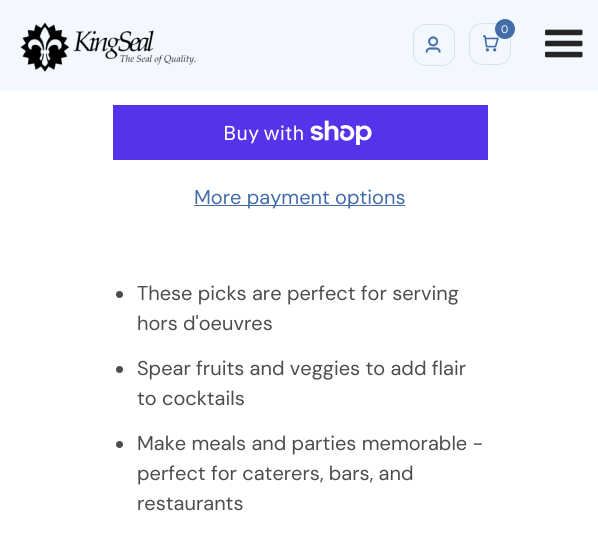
import math
import cairocffi as cairo

surface = cairo.ImageSurface(cairo.FORMAT_RGB24, 598, 542)
cr = cairo.Context(surface)
options = cairo.FontOptions()
options.set_hint_metrics(cairo.HINT_METRICS_OFF)
options.set_hint_style(cairo.HINT_STYLE_NONE)
cr.set_font_options(options)
cr.set_miter_limit(4)


def use_color(code):
    cr.set_source_rgb(*(v / 255 for v in bytes.fromhex(code[-6:])))


def round_rect(x, y, w, h, r):
    cr.new_sub_path()
    for i, (u, v) in enumerate([(x + w - r, y + h - r), (x + r, y + h - r), (x + r, y + r), (x + w - r, y + r)]):
        cr.arc(u, v, r, i * math.pi / 2, (i + 1) * math.pi / 2)
    cr.close_path()


def picture(path, x, y, w, h):
    cr.save()
    cr.set_source_surface(cairo.ImageSurface.create_from_png(path), x, y)
    cr.rectangle(x, y, w, h)
    cr.fill()
    cr.restore()


use_color("#ffffff")
cr.paint()
use_color("#f3f8ff")
cr.rectangle(0, 0, 598, 91)
cr.fill()
picture("img1.png", 20, 22, 176, 50)
round_rect(413.5, 24.5, 41, 41, 12.5)
use_color("#d9e2ee")
cr.set_line_width(1)
cr.stroke()
picture("img2.png", 425, 36, 16, 17)
round_rect(469.5, 23.5, 41, 41, 12.5)
cr.stroke()
picture("img3.png", 483, 35, 16, 17)
use_color("#426da9")
cr.arc(505, 29, 10, 0, 2 * math.pi)
cr.fill()
cr.select_font_face("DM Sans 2")
cr.set_font_size(11)
use_color("#ffffff")
cr.move_to(501, 33)
cr.show_text("0")
picture("img4.png", 545, 29, 38, 29)
use_color("#5433eb")
cr.rectangle(113, 105, 375, 55)
cr.fill()
cr.select_font_face("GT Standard")
cr.set_font_size(20)
use_color("#ffffff")
cr.move_to(223, 140)
cr.show_text("Buy with")
picture("img5.png", 310, 120, 62, 25)
use_color("#426da9")
cr.rectangle(194, 205, 211, 1)
cr.fill()
cr.select_font_face("DM Sans")
cr.move_to(194, 204)
cr.show_text("More payment options")
use_color("#4d4d4d")
cr.new_path()
cr.arc(119.5, 294.5, 3.5, 0, 2 * math.pi)
cr.fill()
cr.move_to(137, 300)
cr.show_text("These picks are perfect for serving")
cr.move_to(137, 330)
cr.show_text("hors d'oeuvres")
cr.new_path()
cr.arc(119.5, 369.5, 3.5, 0, 2 * math.pi)
cr.fill()
cr.move_to(137, 375)
cr.show_text("Spear fruits and veggies to add flair")
cr.move_to(137, 405)
cr.show_text("to cocktails")
cr.new_path()
cr.arc(119.5, 444.5, 3.5, 0, 2 * math.pi)
cr.fill()
cr.move_to(137, 450)
cr.show_text("Make meals and parties memorable -")
cr.move_to(137, 480)
cr.show_text("perfect for caterers, bars, and")
cr.move_to(137, 510)
cr.show_text("restaurants")
surface.write_to_png("result.png")
